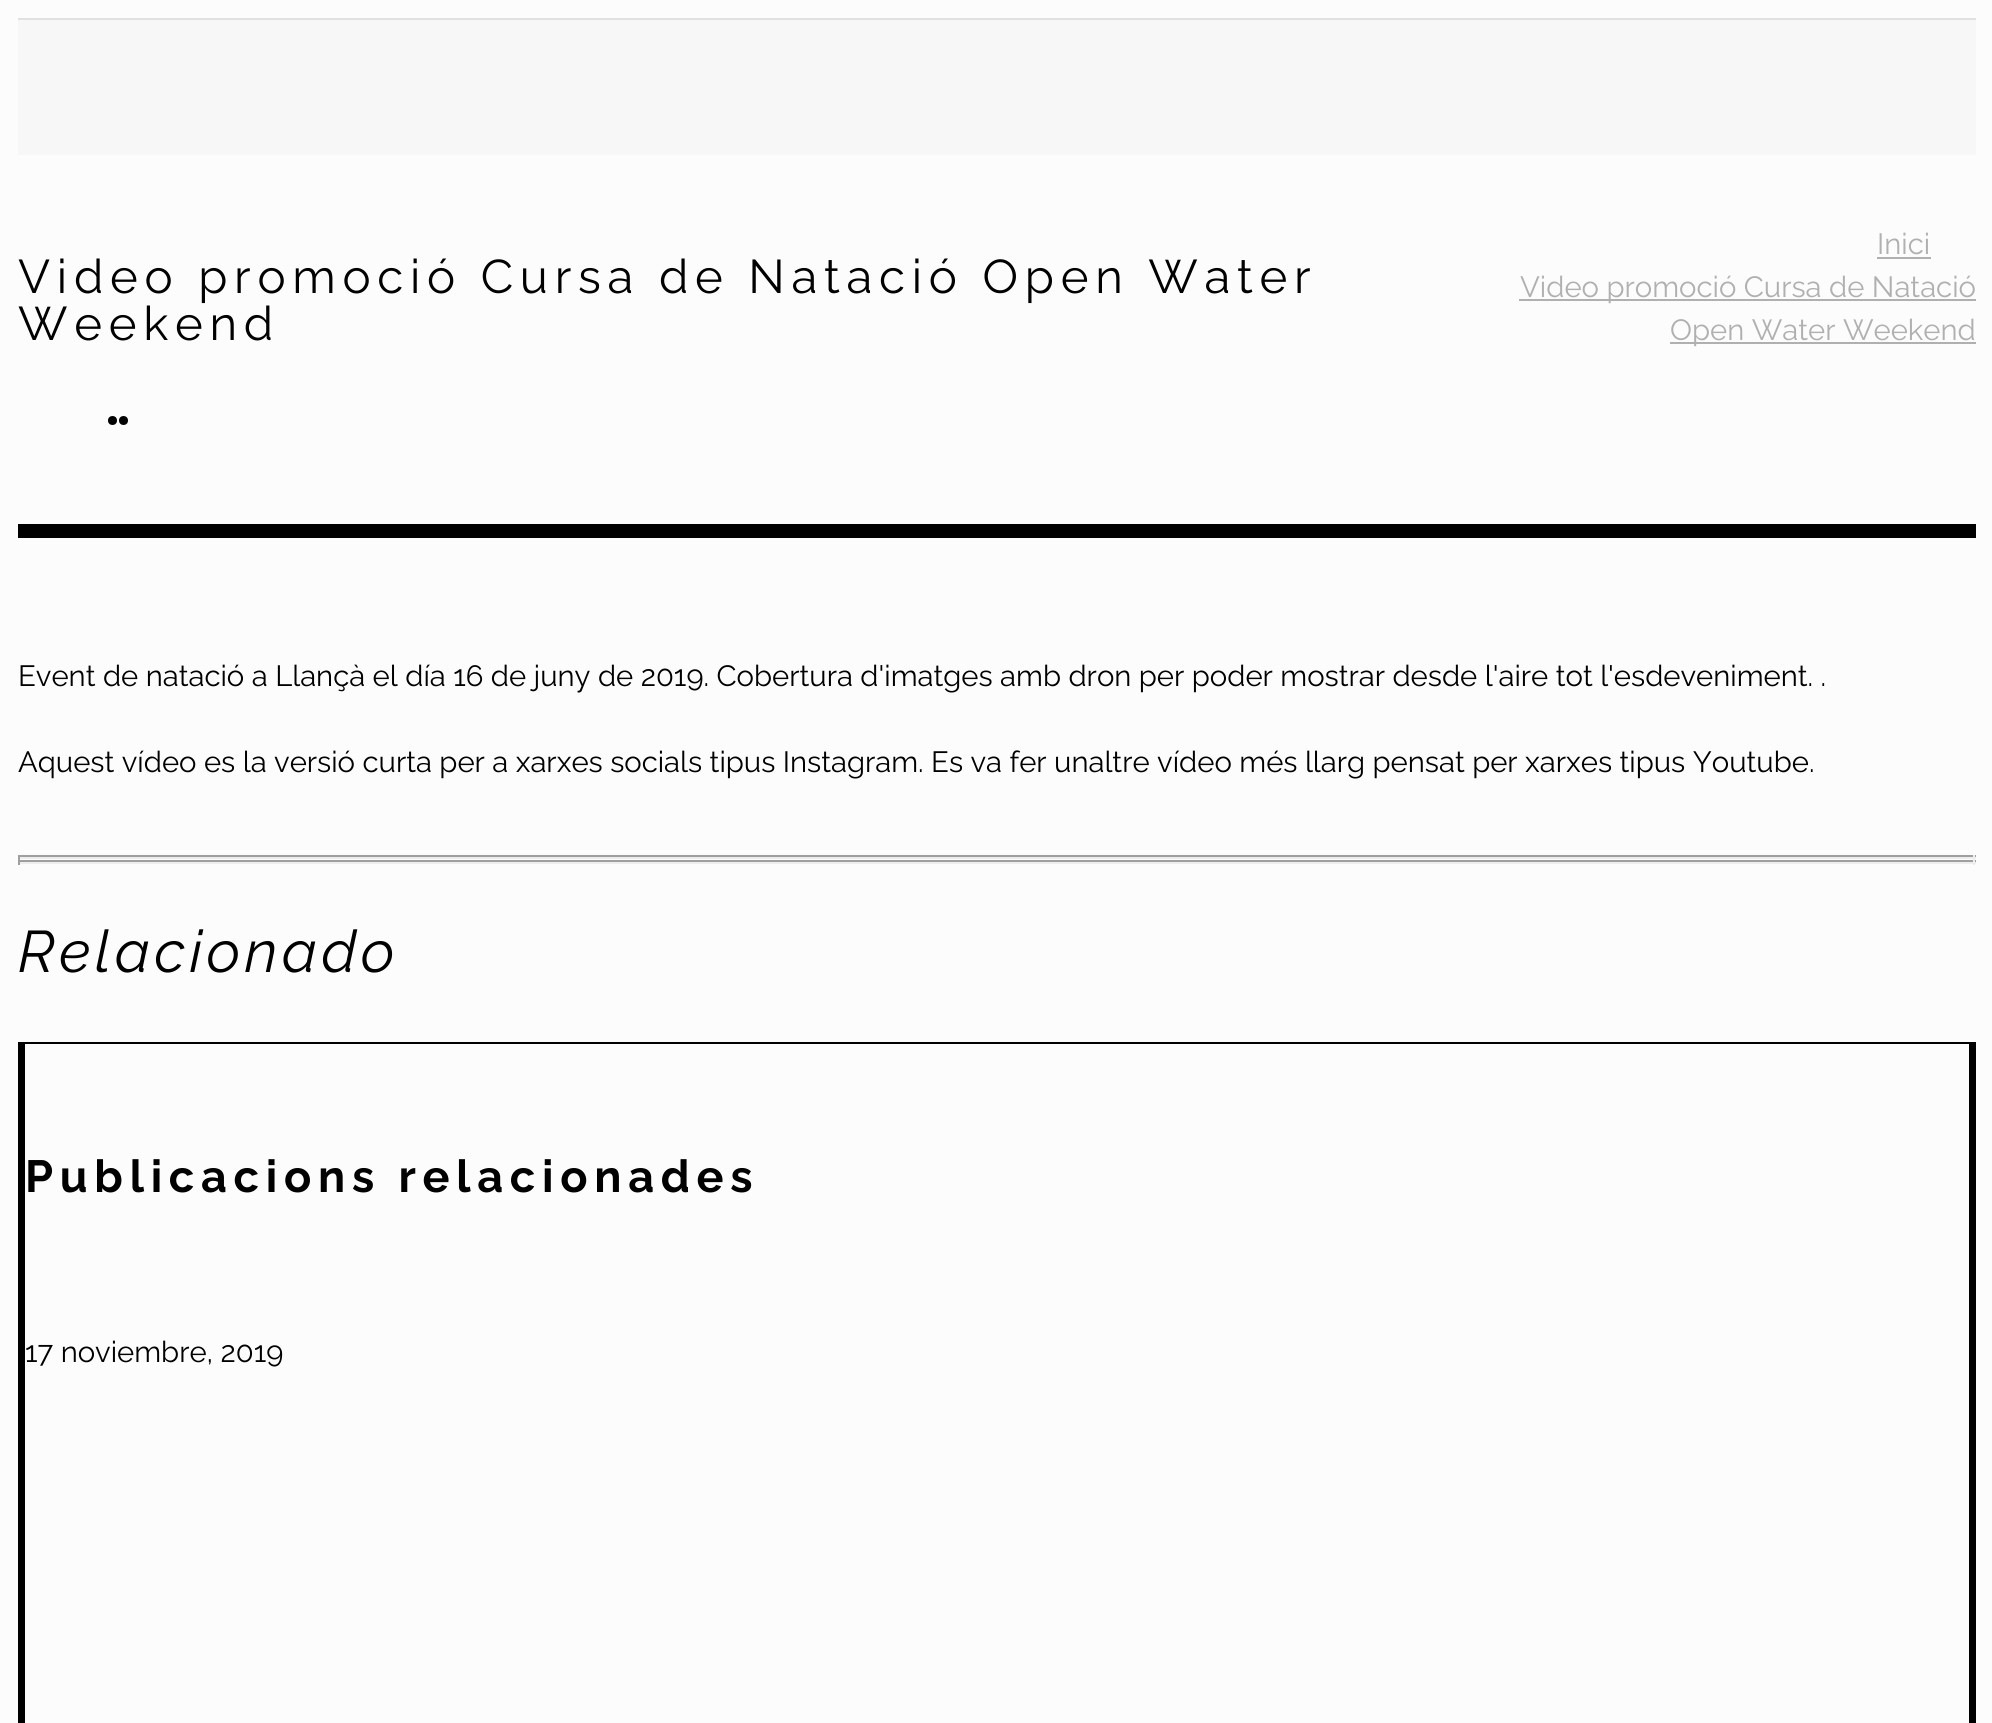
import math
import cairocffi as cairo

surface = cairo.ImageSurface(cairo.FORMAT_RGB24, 1992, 1723)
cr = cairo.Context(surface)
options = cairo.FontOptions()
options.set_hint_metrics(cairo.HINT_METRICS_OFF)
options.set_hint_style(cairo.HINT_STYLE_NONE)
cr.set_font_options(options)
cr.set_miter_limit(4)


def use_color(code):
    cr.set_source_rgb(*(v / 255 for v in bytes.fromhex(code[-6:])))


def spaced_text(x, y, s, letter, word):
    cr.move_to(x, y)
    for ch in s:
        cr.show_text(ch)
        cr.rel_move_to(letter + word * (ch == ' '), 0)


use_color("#fcfcfc")
cr.paint()
use_color("#e1e1e1")
cr.rectangle(18, 18, 1958, 2)
cr.fill()
use_color("#f7f7f7")
cr.rectangle(18, 20, 1958, 135)
cr.fill()
cr.select_font_face("Raleway")
cr.set_font_size(47.25)
use_color("#000000")
spaced_text(18, 293, "Video promoció Cursa de Natació Open Water", 6.75, 0)
spaced_text(18, 340, "Weekend", 6.75, 0)
cr.set_font_size(29.25)
use_color("#b0b0b0")
cr.move_to(1877, 254)
cr.show_text("Inici")
cr.rectangle(1877, 257, 54, 2)
cr.fill()
cr.rectangle(1519, 299, 457, 2)
cr.fill()
cr.move_to(1520, 297)
cr.show_text("Video promoció Cursa de Natació")
cr.rectangle(1670, 342, 306, 2)
cr.fill()
cr.move_to(1670, 340)
cr.show_text("Open Water Weekend")
use_color("#000000")
cr.new_path()
cr.arc(112.5, 420.5, 4.5, 0, 2 * math.pi)
cr.fill()
cr.arc(123.5, 420.5, 4.5, 0, 2 * math.pi)
cr.fill()
cr.rectangle(18, 524, 1958, 7)
cr.fill()
cr.rectangle(1969, 524, 7, 14)
cr.fill()
cr.rectangle(18, 531, 1958, 7)
cr.fill()
cr.move_to(18, 686)
cr.show_text("Event de natació a Llançà el día 16 de juny de 2019. Cobertura d'imatges amb dron per poder mostrar desde l'aire tot l'esdeveniment. .")
cr.move_to(18, 772)
cr.show_text("Aquest vídeo es la versió curta per a xarxes socials tipus Instagram. Es va fer unaltre vídeo més llarg pensat per xarxes tipus Youtube.")
use_color("#9f9f9f")
cr.rectangle(18, 855, 1958, 2)
cr.fill()
use_color("#eeeeee")
cr.rectangle(1973, 855, 2, 5)
cr.fill()
cr.rectangle(18, 857, 1958, 2)
cr.fill()
use_color("#9f9f9f")
cr.rectangle(18, 855, 2, 5)
cr.fill()
cr.rectangle(18, 860, 1958, 2)
cr.fill()
use_color("#eeeeee")
cr.rectangle(1973, 860, 2, 5)
cr.fill()
cr.rectangle(18, 862, 1958, 2)
cr.fill()
use_color("#9f9f9f")
cr.rectangle(18, 860, 2, 5)
cr.fill()
cr.select_font_face("Raleway Thin", cairo.FONT_SLANT_ITALIC)
cr.set_font_size(58.5)
use_color("#000000")
spaced_text(18, 972, "Relacionado", 4.5, 0)
cr.rectangle(18, 1042, 1958, 2)
cr.fill()
cr.rectangle(1969, 1042, 7, 681)
cr.fill()
cr.rectangle(18, 1042, 7, 681)
cr.fill()
cr.select_font_face("Raleway", cairo.FONT_SLANT_NORMAL, cairo.FONT_WEIGHT_BOLD)
cr.set_font_size(45)
spaced_text(25, 1192, "Publicacions relacionades", 6.75, 0)
cr.select_font_face("Raleway")
cr.set_font_size(29.25)
cr.move_to(25, 1362)
cr.show_text("17 noviembre, 2019")
surface.write_to_png("result.png")
